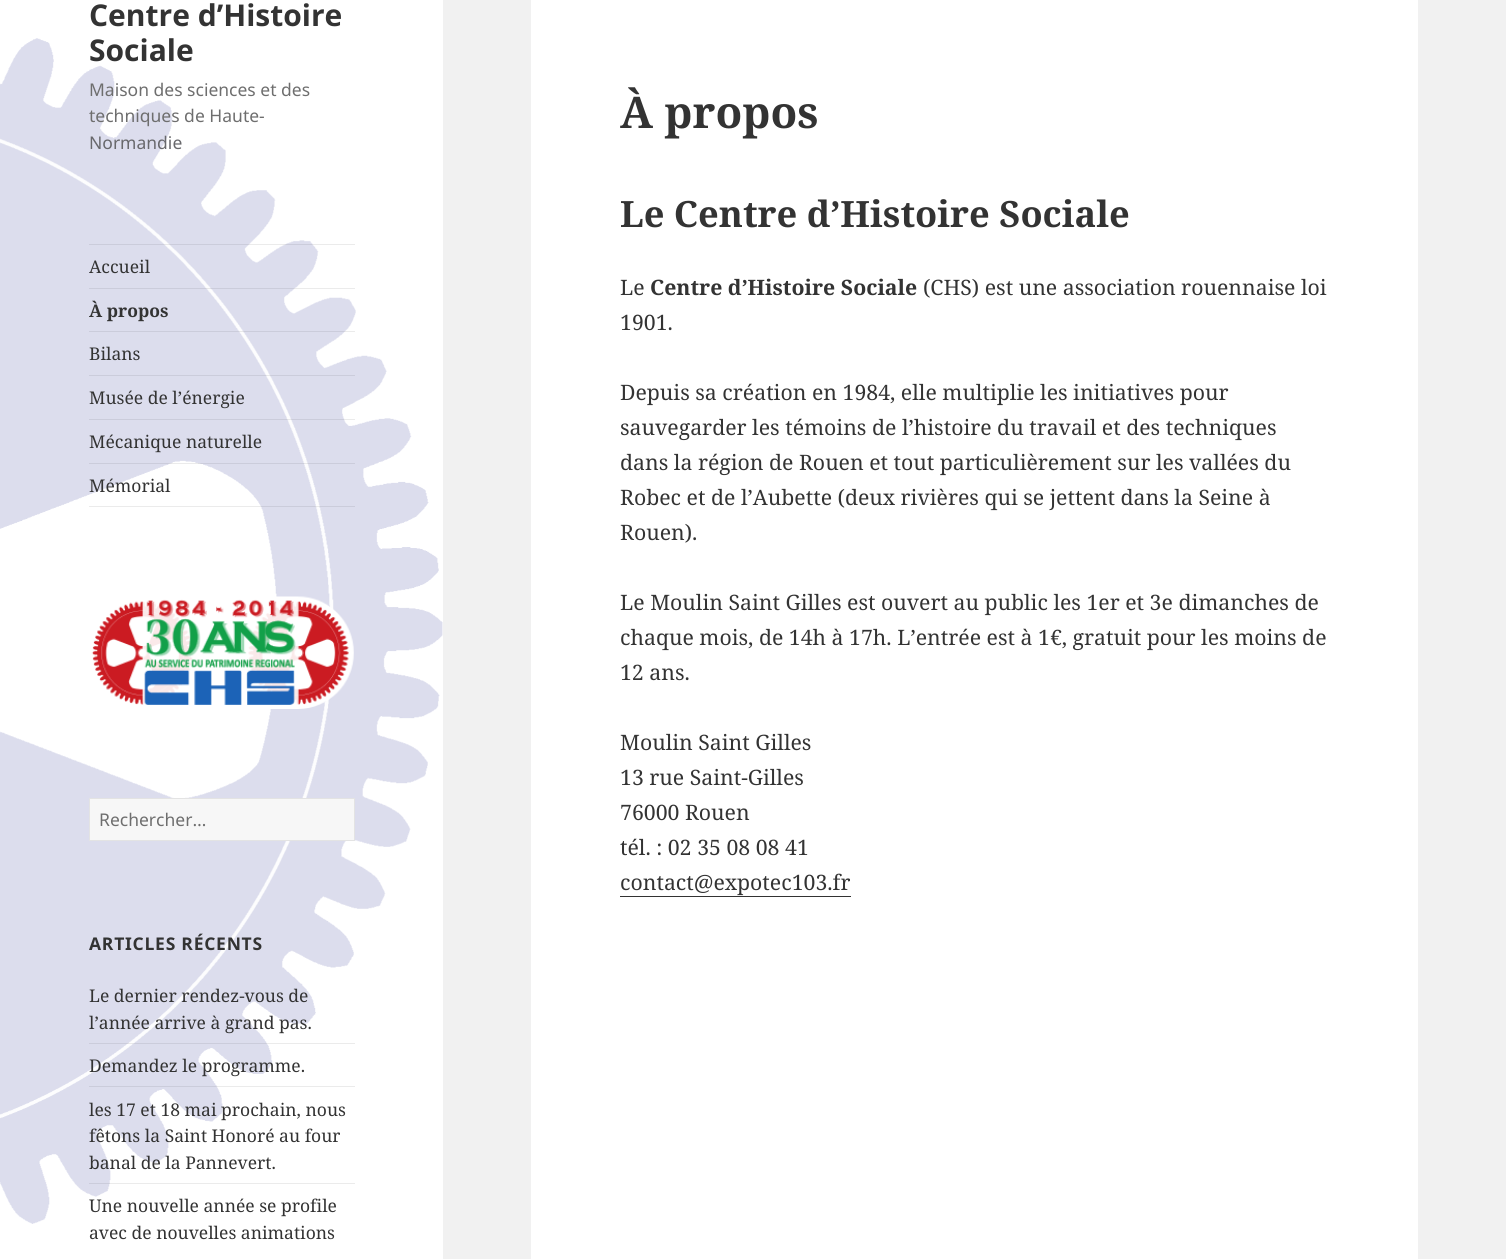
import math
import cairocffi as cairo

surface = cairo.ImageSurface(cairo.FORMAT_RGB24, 1506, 1259)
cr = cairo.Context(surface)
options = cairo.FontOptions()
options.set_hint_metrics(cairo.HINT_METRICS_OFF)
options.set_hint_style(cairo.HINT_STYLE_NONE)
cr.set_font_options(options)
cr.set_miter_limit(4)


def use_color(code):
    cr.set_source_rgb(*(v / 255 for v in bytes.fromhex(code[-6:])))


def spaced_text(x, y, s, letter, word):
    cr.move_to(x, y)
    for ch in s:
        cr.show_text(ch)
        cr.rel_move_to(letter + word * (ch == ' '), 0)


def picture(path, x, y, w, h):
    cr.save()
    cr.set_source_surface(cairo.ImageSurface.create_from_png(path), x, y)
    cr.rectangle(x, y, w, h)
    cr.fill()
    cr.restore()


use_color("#f1f1f1")
cr.paint()
use_color("#ffffff")
cr.rectangle(0, 0, 443, 1259)
cr.fill()
picture("img1.png", 0, 38, 443, 1186)
cr.select_font_face("Noto Sans", cairo.FONT_SLANT_NORMAL, cairo.FONT_WEIGHT_BOLD)
cr.set_font_size(30)
use_color("#333333")
cr.move_to(89, 26)
cr.show_text("Centre d’Histoire")
cr.move_to(89, 61)
cr.show_text("Sociale")
cr.select_font_face("Noto Sans")
cr.set_font_size(17.5)
use_color("#6e6e6e")
cr.move_to(89, 96)
cr.show_text("Maison des sciences et des")
cr.move_to(89, 122)
cr.show_text("techniques de Haute-")
use_color("#68686c")
cr.move_to(89, 149)
cr.show_text("Normandie")
cr.set_source_rgba(0.2, 0.2, 0.2, 0.1)
cr.rectangle(89, 244, 266, 1)
cr.fill()
cr.rectangle(89, 506, 266, 1)
cr.fill()
cr.select_font_face("Noto Serif")
use_color("#333333")
cr.move_to(89, 273)
cr.show_text("Accueil")
cr.set_source_rgba(0.2, 0.2, 0.2, 0.1)
cr.rectangle(89, 288, 266, 1)
cr.fill()
cr.select_font_face("Noto Serif", cairo.FONT_SLANT_NORMAL, cairo.FONT_WEIGHT_BOLD)
use_color("#333333")
cr.move_to(89, 317)
cr.show_text("À propos")
cr.set_source_rgba(0.2, 0.2, 0.2, 0.1)
cr.rectangle(89, 331, 266, 1)
cr.fill()
cr.select_font_face("Noto Serif")
use_color("#333333")
cr.move_to(89, 360)
cr.show_text("Bilans")
cr.set_source_rgba(0.2, 0.2, 0.2, 0.1)
cr.rectangle(89, 375, 266, 1)
cr.fill()
use_color("#333333")
cr.move_to(89, 404)
cr.show_text("Musée de l’énergie")
cr.set_source_rgba(0.2, 0.2, 0.2, 0.1)
cr.rectangle(89, 419, 266, 1)
cr.fill()
use_color("#333333")
cr.move_to(89, 448)
cr.show_text("Mécanique naturelle")
cr.set_source_rgba(0.2, 0.2, 0.2, 0.1)
cr.rectangle(89, 463, 266, 1)
cr.fill()
use_color("#333333")
cr.move_to(89, 492)
cr.show_text("Mémorial")
picture("img2.png", 91, 596, 263, 113)
use_color("#f7f7f7")
cr.rectangle(89.5, 798.5, 265, 42)
cr.fill_preserve()
use_color("#e3e3e3")
cr.set_line_width(1)
cr.stroke()
cr.select_font_face("Noto Sans")
use_color("#6e6e6e")
cr.move_to(99, 826)
cr.show_text("Rechercher…")
cr.select_font_face("Noto Sans", cairo.FONT_SLANT_NORMAL, cairo.FONT_WEIGHT_BOLD)
use_color("#333333")
spaced_text(89, 950, "ARTICLES RÉCENTS", 0.75, 0)
cr.select_font_face("Noto Serif")
cr.move_to(89, 1002)
cr.show_text("Le dernier rendez-vous de")
cr.move_to(89, 1029)
cr.show_text("l’année arrive à grand pas.")
cr.set_source_rgba(0.2, 0.2, 0.2, 0.1)
cr.rectangle(89, 1043, 266, 1)
cr.fill()
use_color("#333333")
cr.move_to(89, 1072)
cr.show_text("Demandez le programme.")
cr.set_source_rgba(0.2, 0.2, 0.2, 0.1)
cr.rectangle(89, 1086, 266, 1)
cr.fill()
use_color("#333333")
cr.move_to(89, 1116)
cr.show_text("les 17 et 18 mai prochain, nous")
cr.move_to(89, 1142)
cr.show_text("fêtons la Saint Honoré au four")
cr.move_to(89, 1169)
cr.show_text("banal de la Pannevert.")
cr.set_source_rgba(0.2, 0.2, 0.2, 0.1)
cr.rectangle(89, 1183, 266, 1)
cr.fill()
use_color("#333333")
cr.move_to(89, 1212)
cr.show_text("Une nouvelle année se profile")
cr.move_to(89, 1239)
cr.show_text("avec de nouvelles animations")
use_color("#ffffff")
cr.rectangle(531, 0, 887, 1259)
cr.fill()
cr.select_font_face("Noto Serif", cairo.FONT_SLANT_NORMAL, cairo.FONT_WEIGHT_BOLD)
cr.set_font_size(43.75)
use_color("#333333")
cr.move_to(620, 128)
cr.show_text("À propos")
cr.set_font_size(36.25)
cr.move_to(620, 227)
cr.show_text("Le Centre d’Histoire Sociale")
cr.select_font_face("Noto Serif")
cr.set_font_size(21.25)
cr.move_to(620, 295)
cr.show_text("Le")
cr.select_font_face("Noto Serif", cairo.FONT_SLANT_NORMAL, cairo.FONT_WEIGHT_BOLD)
cr.move_to(650, 295)
cr.show_text("Centre d’Histoire Sociale")
cr.select_font_face("Noto Serif")
cr.move_to(923, 295)
cr.show_text("(CHS) est une association rouennaise loi")
cr.move_to(620, 330)
cr.show_text("1901.")
cr.move_to(620, 400)
cr.show_text("Depuis sa création en 1984, elle multiplie les initiatives pour")
cr.move_to(620, 435)
cr.show_text("sauvegarder les témoins de l’histoire du travail et des techniques")
cr.move_to(620, 470)
cr.show_text("dans la région de Rouen et tout particulièrement sur les vallées du")
cr.move_to(620, 505)
cr.show_text("Robec et de l’Aubette (deux rivières qui se jettent dans la Seine à")
cr.move_to(620, 540)
cr.show_text("Rouen).")
cr.move_to(620, 610)
cr.show_text("Le Moulin Saint Gilles est ouvert au public les 1er et 3e dimanches de")
cr.move_to(620, 645)
cr.show_text("chaque mois, de 14h à 17h. L’entrée est à 1€, gratuit pour les moins de")
cr.move_to(620, 680)
cr.show_text("12 ans.")
cr.move_to(620, 750)
cr.show_text("Moulin Saint Gilles")
cr.move_to(620, 785)
cr.show_text("13 rue Saint-Gilles")
cr.move_to(620, 820)
cr.show_text("76000 Rouen")
cr.move_to(620, 855)
cr.show_text("tél. : 02 35 08 08 41")
cr.move_to(620, 890)
cr.show_text("contact@expotec103.fr")
cr.rectangle(620, 896, 231, 1)
cr.fill()
surface.write_to_png("result.png")
